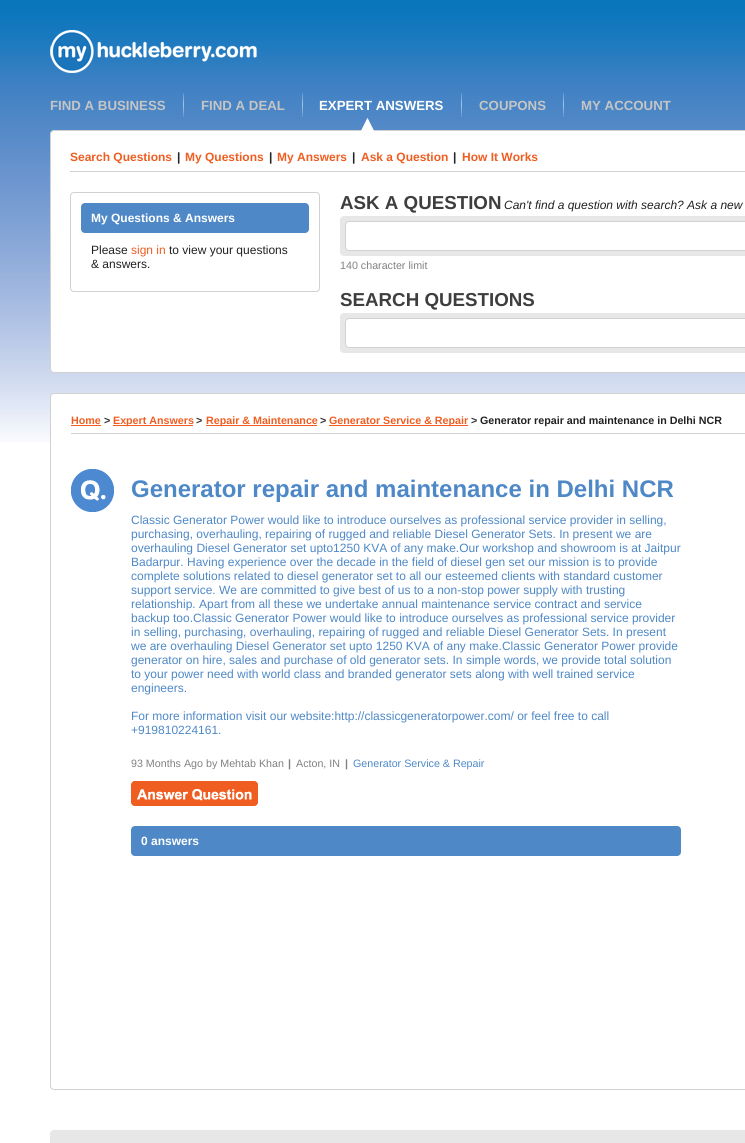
import math
import cairocffi as cairo

surface = cairo.ImageSurface(cairo.FORMAT_RGB24, 745, 1143)
cr = cairo.Context(surface)
options = cairo.FontOptions()
options.set_hint_metrics(cairo.HINT_METRICS_OFF)
options.set_hint_style(cairo.HINT_STYLE_NONE)
cr.set_font_options(options)
cr.set_miter_limit(4)


def use_color(code):
    cr.set_source_rgb(*(v / 255 for v in bytes.fromhex(code[-6:])))


def round_rect(x, y, w, h, r):
    cr.new_sub_path()
    for i, (u, v) in enumerate([(x + w - r, y + h - r), (x + r, y + h - r), (x + r, y + r), (x + w - r, y + r)]):
        cr.arc(u, v, r, i * math.pi / 2, (i + 1) * math.pi / 2)
    cr.close_path()


def picture(path, x, y, w, h):
    cr.save()
    cr.set_source_surface(cairo.ImageSurface.create_from_png(path), x, y)
    cr.rectangle(x, y, w, h)
    cr.fill()
    cr.restore()


use_color("#ffffff")
cr.paint()
picture("img1.png", 0, 0, 745, 442)
picture("img2.png", 50, 30, 207, 43)
cr.select_font_face("Liberation Sans", cairo.FONT_SLANT_NORMAL, cairo.FONT_WEIGHT_BOLD)
cr.set_font_size(13.25)
use_color("#c5c5c5")
cr.move_to(50, 110)
cr.show_text("FIND A BUSINESS")
picture("img3.png", 183, 93, 1, 24)
cr.move_to(201, 110)
cr.show_text("FIND A DEAL")
picture("img3.png", 302, 93, 1, 24)
use_color("#ffffff")
cr.move_to(319, 110)
cr.show_text("EXPERT ANSWERS")
picture("img3.png", 461, 93, 1, 24)
use_color("#c5c5c5")
cr.move_to(479, 110)
cr.show_text("COUPONS")
picture("img3.png", 563, 93, 1, 24)
cr.move_to(581, 110)
cr.show_text("MY ACCOUNT")
use_color("#ffffff")
round_rect(50.5, 130.5, 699, 242, 3.5)
cr.fill_preserve()
use_color("#d1d1d1")
cr.set_line_width(1)
cr.stroke()
picture("img4.png", 361, 118, 13, 13)
cr.rectangle(70, 171, 675, 1)
cr.fill()
cr.set_font_size(12)
use_color("#ef5d21")
cr.move_to(70, 161)
cr.show_text("Search Questions")
use_color("#212121")
cr.move_to(177, 161)
cr.show_text("|")
use_color("#ef5d21")
cr.move_to(185, 161)
cr.show_text("My Questions")
use_color("#212121")
cr.move_to(269, 161)
cr.show_text("|")
use_color("#ef5d21")
cr.move_to(277, 161)
cr.show_text("My Answers")
use_color("#212121")
cr.move_to(352, 161)
cr.show_text("|")
use_color("#ef5d21")
cr.move_to(361, 161)
cr.show_text("Ask a Question")
use_color("#212121")
cr.move_to(453, 161)
cr.show_text("|")
use_color("#ef5d21")
cr.move_to(462, 161)
cr.show_text("How It Works")
round_rect(70.5, 192.5, 249, 99, 3.5)
use_color("#d1d1d1")
cr.stroke()
use_color("#4e88c7")
round_rect(81, 203, 228, 30, 4)
cr.fill()
use_color("#ffffff")
cr.move_to(91, 222)
cr.show_text("My Questions & Answers")
cr.select_font_face("Liberation Sans")
use_color("#212121")
cr.move_to(91, 254)
cr.show_text("Please")
use_color("#ef5d21")
cr.move_to(131, 254)
cr.show_text("sign in")
use_color("#212121")
cr.move_to(169, 254)
cr.show_text("to view your questions")
cr.move_to(91, 268)
cr.show_text("& answers.")
cr.select_font_face("Liberation Sans", cairo.FONT_SLANT_NORMAL, cairo.FONT_WEIGHT_BOLD)
cr.set_font_size(18.75)
use_color("#3e3e3e")
cr.move_to(340, 209)
cr.show_text("ASK A QUESTION")
cr.select_font_face("Liberation Sans", cairo.FONT_SLANT_ITALIC)
cr.set_font_size(12)
use_color("#212121")
cr.move_to(504, 209)
cr.show_text("Can't find a question with search? Ask a new")
use_color("#e7e7e7")
round_rect(340, 216, 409, 40, 4)
cr.fill()
use_color("#ffffff")
round_rect(345.5, 221.5, 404, 29, 3.5)
cr.fill_preserve()
use_color("#d1d1d1")
cr.stroke()
cr.select_font_face("Liberation Sans")
cr.set_font_size(10.7)
use_color("#818181")
cr.move_to(340, 269)
cr.show_text("140 character limit")
cr.select_font_face("Liberation Sans", cairo.FONT_SLANT_NORMAL, cairo.FONT_WEIGHT_BOLD)
cr.set_font_size(18.75)
use_color("#3e3e3e")
cr.move_to(340, 306)
cr.show_text("SEARCH QUESTIONS")
use_color("#e7e7e7")
round_rect(340, 313, 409, 40, 4)
cr.fill()
use_color("#ffffff")
round_rect(345.5, 318.5, 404, 29, 3.5)
cr.fill_preserve()
use_color("#d1d1d1")
cr.stroke()
use_color("#ffffff")
round_rect(50.5, 393.5, 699, 696, 3.5)
cr.fill_preserve()
use_color("#d1d1d1")
cr.stroke()
cr.rectangle(71, 433, 674, 1)
cr.fill()
cr.set_font_size(10.7)
use_color("#ef5d21")
cr.move_to(71, 424)
cr.show_text("Home")
cr.rectangle(71, 425, 30, 1)
cr.fill()
use_color("#303030")
cr.move_to(104, 424)
cr.show_text(">")
use_color("#ef5d21")
cr.rectangle(113, 425, 80, 1)
cr.fill()
cr.move_to(113, 424)
cr.show_text("Expert Answers")
use_color("#303030")
cr.move_to(196, 424)
cr.show_text(">")
use_color("#ef5d21")
cr.rectangle(206, 425, 111, 1)
cr.fill()
cr.move_to(206, 424)
cr.show_text("Repair & Maintenance")
use_color("#303030")
cr.move_to(320, 424)
cr.show_text(">")
use_color("#ef5d21")
cr.rectangle(329, 425, 139, 1)
cr.fill()
cr.move_to(329, 424)
cr.show_text("Generator Service & Repair")
use_color("#303030")
cr.move_to(471, 424)
cr.show_text(">")
use_color("#212121")
cr.move_to(480, 424)
cr.show_text("Generator repair and maintenance in Delhi NCR")
picture("img5.png", 71, 469, 43, 43)
cr.set_font_size(24)
use_color("#4e88c7")
cr.move_to(131, 497)
cr.show_text("Generator repair and maintenance in Delhi NCR")
cr.select_font_face("Liberation Sans")
cr.set_font_size(12)
cr.move_to(131, 524)
cr.show_text("Classic Generator Power would like to introduce ourselves as professional service provider in selling,")
cr.move_to(131, 538)
cr.show_text("purchasing, overhauling, repairing of rugged and reliable Diesel Generator Sets. In present we are")
cr.move_to(131, 552)
cr.show_text("overhauling Diesel Generator set upto1250 KVA of any make.Our workshop and showroom is at Jaitpur")
cr.move_to(131, 566)
cr.show_text("Badarpur. Having experience over the decade in the field of diesel gen set our mission is to provide")
cr.move_to(131, 580)
cr.show_text("complete solutions related to diesel generator set to all our esteemed clients with standard customer")
cr.move_to(131, 594)
cr.show_text("support service. We are committed to give best of us to a non-stop power supply with trusting")
cr.move_to(131, 608)
cr.show_text("relationship. Apart from all these we undertake annual maintenance service contract and service")
cr.move_to(131, 622)
cr.show_text("backup too.Classic Generator Power would like to introduce ourselves as professional service provider")
cr.move_to(131, 636)
cr.show_text("in selling, purchasing, overhauling, repairing of rugged and reliable Diesel Generator Sets. In present")
cr.move_to(131, 650)
cr.show_text("we are overhauling Diesel Generator set upto 1250 KVA of any make.Classic Generator Power provide")
cr.move_to(131, 664)
cr.show_text("generator on hire, sales and purchase of old generator sets. In simple words, we provide total solution")
cr.move_to(131, 678)
cr.show_text("to your power need with world class and branded generator sets along with well trained service")
cr.move_to(131, 692)
cr.show_text("engineers.")
cr.move_to(131, 720)
cr.show_text("For more information visit our website:http://classicgeneratorpower.com/ or feel free to call")
cr.move_to(131, 734)
cr.show_text("+919810224161.")
cr.set_font_size(10.7)
use_color("#818181")
cr.move_to(131, 767)
cr.show_text("93 Months Ago by Mehtab Khan")
cr.select_font_face("Liberation Sans", cairo.FONT_SLANT_NORMAL, cairo.FONT_WEIGHT_BOLD)
cr.move_to(288, 767)
cr.show_text("|")
cr.select_font_face("Liberation Sans")
cr.move_to(296, 767)
cr.show_text("Acton, IN")
cr.select_font_face("Liberation Sans", cairo.FONT_SLANT_NORMAL, cairo.FONT_WEIGHT_BOLD)
cr.move_to(345, 767)
cr.show_text("|")
cr.select_font_face("Liberation Sans")
use_color("#4e88c7")
cr.move_to(353, 767)
cr.show_text("Generator Service & Repair")
picture("img6.png", 131, 781, 127, 25)
round_rect(131, 826, 550, 30, 4)
cr.fill()
cr.select_font_face("Liberation Sans", cairo.FONT_SLANT_NORMAL, cairo.FONT_WEIGHT_BOLD)
cr.set_font_size(12)
use_color("#ffffff")
cr.move_to(141, 845)
cr.show_text("0 answers")
use_color("#e7e7e7")
round_rect(50, 1130, 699, 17, 4)
cr.fill()
surface.write_to_png("result.png")
